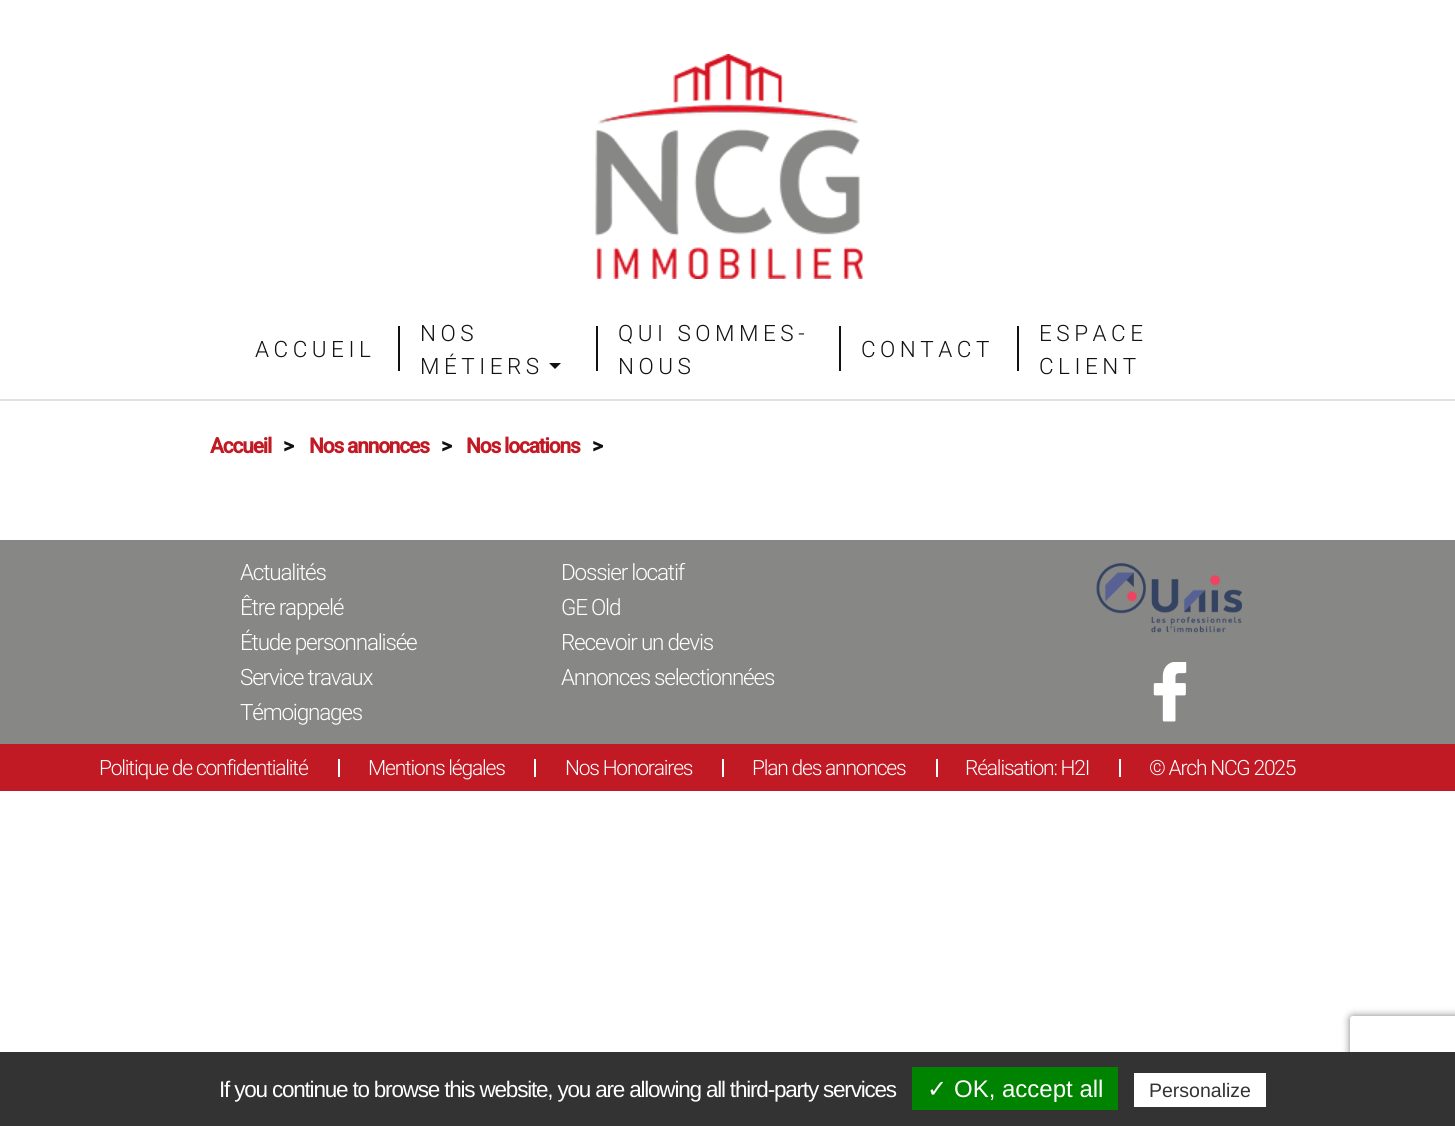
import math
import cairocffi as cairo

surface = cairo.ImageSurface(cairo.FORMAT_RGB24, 1455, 1126)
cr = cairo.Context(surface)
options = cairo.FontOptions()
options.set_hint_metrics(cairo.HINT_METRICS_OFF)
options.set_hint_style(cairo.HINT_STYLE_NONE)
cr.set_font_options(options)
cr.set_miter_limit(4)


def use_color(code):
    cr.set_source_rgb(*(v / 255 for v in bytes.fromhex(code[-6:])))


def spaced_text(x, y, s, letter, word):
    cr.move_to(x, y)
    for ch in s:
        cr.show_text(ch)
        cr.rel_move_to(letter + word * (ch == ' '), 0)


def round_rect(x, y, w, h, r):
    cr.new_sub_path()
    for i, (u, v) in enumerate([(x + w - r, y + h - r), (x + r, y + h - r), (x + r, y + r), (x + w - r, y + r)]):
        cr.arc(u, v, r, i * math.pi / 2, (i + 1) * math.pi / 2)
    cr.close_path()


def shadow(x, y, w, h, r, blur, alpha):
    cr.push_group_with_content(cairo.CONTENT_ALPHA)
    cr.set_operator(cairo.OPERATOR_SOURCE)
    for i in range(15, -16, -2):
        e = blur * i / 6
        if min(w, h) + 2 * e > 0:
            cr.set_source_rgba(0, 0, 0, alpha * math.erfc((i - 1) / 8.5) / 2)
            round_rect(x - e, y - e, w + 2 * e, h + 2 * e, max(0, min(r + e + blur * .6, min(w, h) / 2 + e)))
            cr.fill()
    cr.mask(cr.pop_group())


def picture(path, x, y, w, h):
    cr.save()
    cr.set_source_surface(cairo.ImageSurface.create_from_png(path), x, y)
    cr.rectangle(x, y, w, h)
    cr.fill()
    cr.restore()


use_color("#ffffff")
cr.paint()
use_color("#dee2e6")
cr.rectangle(0, 399, 1455, 2)
cr.fill()
picture("img1.png", 595, 54, 268, 225)
cr.select_font_face("Roboto Light")
cr.set_font_size(22.5)
use_color("#111111")
spaced_text(255, 357, "ACCUEIL", 4.5, 0)
cr.rectangle(398, 326, 2, 45)
cr.fill()
spaced_text(420, 341, "NOS", 4.5, 0)
spaced_text(420, 374, "MÉTIERS", 4.5, 0)
cr.new_path()
cr.move_to(549, 363)
cr.line_to(561, 363)
cr.line_to(555, 369)
cr.close_path()
cr.fill()
cr.rectangle(596, 326, 2, 45)
cr.fill()
spaced_text(618, 341, "QUI SOMMES-", 4.5, 0)
spaced_text(618, 374, "NOUS", 4.5, 0)
cr.rectangle(839, 326, 2, 45)
cr.fill()
spaced_text(861, 357, "CONTACT", 4.5, 0)
cr.rectangle(1017, 326, 2, 45)
cr.fill()
spaced_text(1039, 341, "ESPACE", 4.5, 0)
spaced_text(1039, 374, "CLIENT", 4.5, 0)
cr.select_font_face("Roboto", cairo.FONT_SLANT_NORMAL, cairo.FONT_WEIGHT_BOLD)
cr.set_font_size(21)
use_color("#c21a24")
spaced_text(210, 453, "Accueil", -1.2, 0)
use_color("#111111")
spaced_text(283, 453, ">", -1.2, 0)
use_color("#c21a24")
spaced_text(309, 453, "Nos annonces", -1.2, 0)
use_color("#111111")
spaced_text(441, 453, ">", -1.2, 0)
use_color("#c21a24")
spaced_text(466, 453, "Nos locations", -1.2, 0)
use_color("#111111")
spaced_text(592, 453, ">", -1.2, 0)
use_color("#878786")
cr.rectangle(0, 540, 1455, 204)
cr.fill()
cr.select_font_face("Roboto Light")
cr.set_font_size(22.5)
use_color("#ffffff")
spaced_text(240, 580, "Actualités", -1.2, 0)
spaced_text(561, 580, "Dossier locatif", -1.2, 0)
spaced_text(240, 615, "Être rappelé", -1.2, 0)
spaced_text(561, 615, "GE Old", -1.2, 0)
spaced_text(240, 650, "Étude personnalisée", -1.2, 0)
spaced_text(561, 650, "Recevoir un devis", -1.2, 0)
spaced_text(240, 685, "Service travaux", -1.2, 0)
spaced_text(561, 685, "Annonces selectionnées", -1.2, 0)
spaced_text(240, 720, "Témoignages", -1.2, 0)
picture("img2.png", 1096, 563, 146, 70)
picture("img3.png", 1153, 662, 34, 60)
use_color("#c21a24")
cr.rectangle(0, 744, 1455, 47)
cr.fill()
cr.set_font_size(21)
use_color("#ffffff")
spaced_text(99, 775, "Politique de confidentialité", -1.2, 0)
cr.rectangle(338, 759, 2, 18)
cr.fill()
spaced_text(368, 775, "Mentions légales", -1.2, 0)
cr.rectangle(534, 759, 2, 18)
cr.fill()
spaced_text(565, 775, "Nos Honoraires", -1.2, 0)
cr.rectangle(722, 759, 2, 18)
cr.fill()
spaced_text(752, 775, "Plan des annonces", -1.2, 0)
cr.rectangle(936, 759, 2, 18)
cr.fill()
spaced_text(965, 775, "Réalisation: H2I", -1.2, 0)
cr.rectangle(1119, 759, 2, 18)
cr.fill()
spaced_text(1149, 775, "© Arch NCG 2025", -1.2, 0)
cr.save()
cr.set_fill_rule(cairo.FILL_RULE_EVEN_ODD)
cr.new_path()
cr.move_to(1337, 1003)
cr.line_to(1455, 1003)
cr.line_to(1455, 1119)
cr.line_to(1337, 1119)
cr.close_path()
cr.move_to(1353, 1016)
cr.line_to(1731, 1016)
cr.curve_to(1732.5, 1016, 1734, 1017.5, 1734, 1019)
cr.line_to(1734, 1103)
cr.curve_to(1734, 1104.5, 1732.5, 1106, 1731, 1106)
cr.line_to(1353, 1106)
cr.curve_to(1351.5, 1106, 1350, 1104.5, 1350, 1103)
cr.line_to(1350, 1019)
cr.curve_to(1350, 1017.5, 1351.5, 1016, 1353, 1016)
cr.close_path()
cr.clip()
use_color("#808080")
shadow(1350, 1016, 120, 90, 3, 4, 1)
cr.restore()
use_color("#333333")
cr.rectangle(0, 1052, 1455, 74)
cr.fill()
cr.select_font_face("Liberation Sans")
cr.set_font_size(22.5)
use_color("#ffffff")
spaced_text(219, 1097, "If you continue to browse this website, you are allowing all third-party services", -1.2, 0)
use_color("#008300")
cr.rectangle(912, 1067, 206, 43)
cr.fill()
cr.select_font_face("DejaVu Sans")
cr.set_font_size(24)
use_color("#ffffff")
cr.move_to(927, 1097)
cr.show_text("✓")
cr.select_font_face("Liberation Sans")
cr.move_to(954, 1097)
cr.show_text("OK, accept all")
cr.rectangle(1134, 1073, 132, 34)
cr.fill()
cr.set_font_size(19.5)
use_color("#333333")
cr.move_to(1149, 1097)
cr.show_text("Personalize")
surface.write_to_png("result.png")
